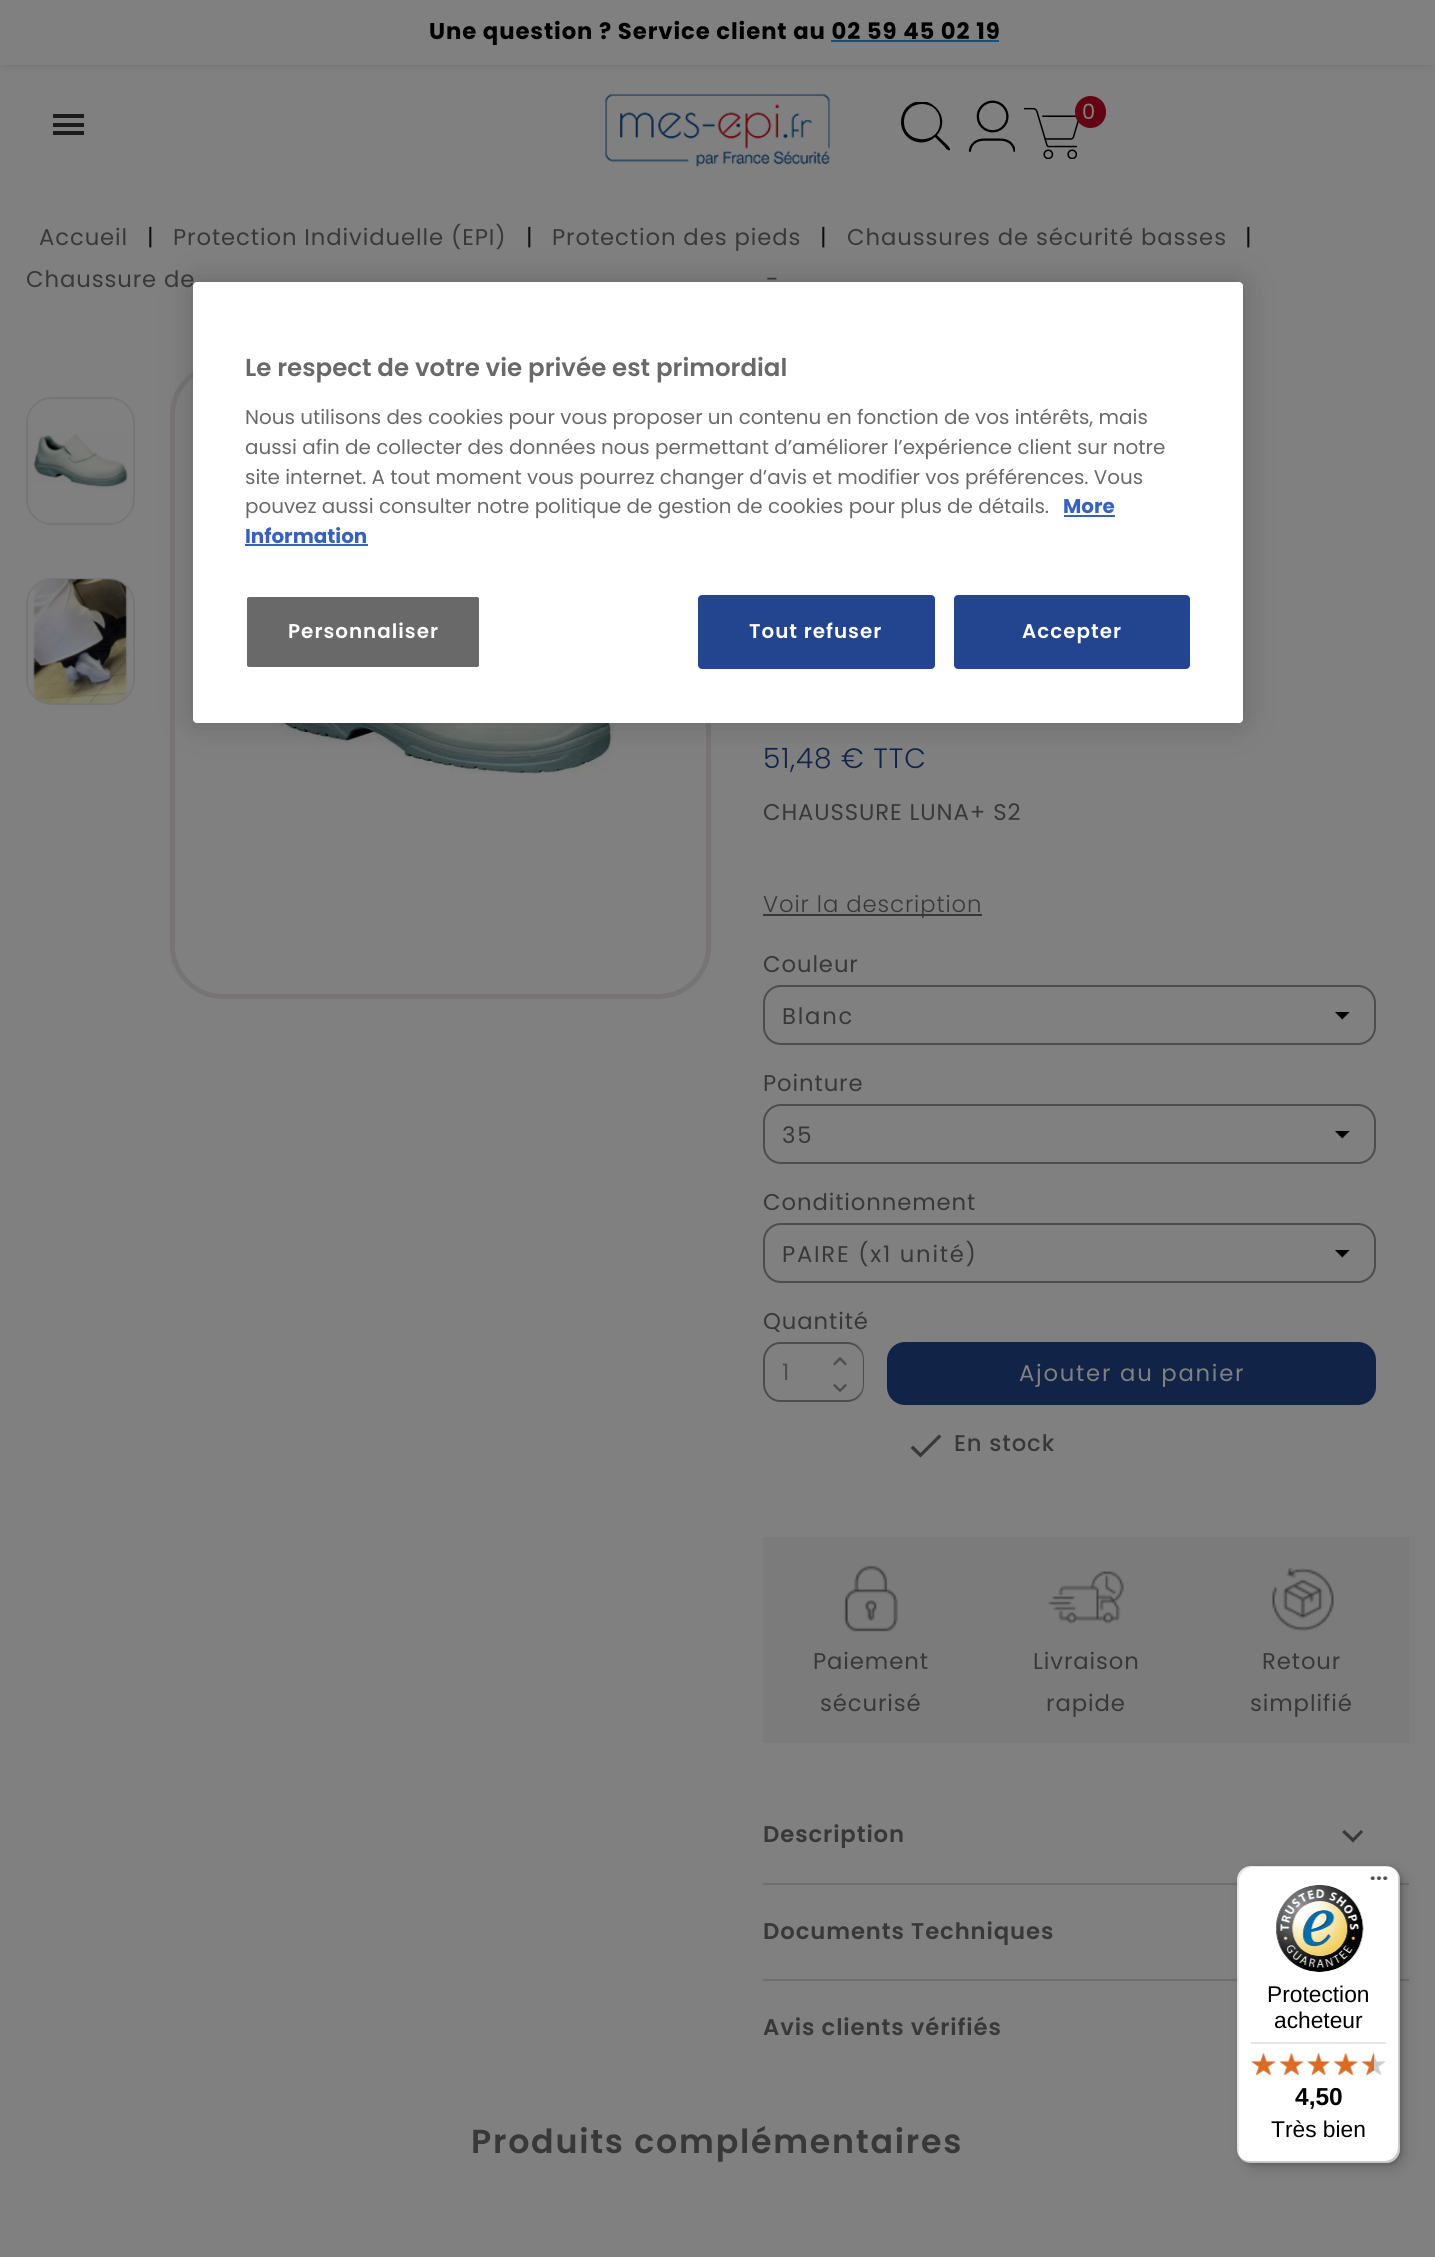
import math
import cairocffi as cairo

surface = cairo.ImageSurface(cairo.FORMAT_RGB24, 1435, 2257)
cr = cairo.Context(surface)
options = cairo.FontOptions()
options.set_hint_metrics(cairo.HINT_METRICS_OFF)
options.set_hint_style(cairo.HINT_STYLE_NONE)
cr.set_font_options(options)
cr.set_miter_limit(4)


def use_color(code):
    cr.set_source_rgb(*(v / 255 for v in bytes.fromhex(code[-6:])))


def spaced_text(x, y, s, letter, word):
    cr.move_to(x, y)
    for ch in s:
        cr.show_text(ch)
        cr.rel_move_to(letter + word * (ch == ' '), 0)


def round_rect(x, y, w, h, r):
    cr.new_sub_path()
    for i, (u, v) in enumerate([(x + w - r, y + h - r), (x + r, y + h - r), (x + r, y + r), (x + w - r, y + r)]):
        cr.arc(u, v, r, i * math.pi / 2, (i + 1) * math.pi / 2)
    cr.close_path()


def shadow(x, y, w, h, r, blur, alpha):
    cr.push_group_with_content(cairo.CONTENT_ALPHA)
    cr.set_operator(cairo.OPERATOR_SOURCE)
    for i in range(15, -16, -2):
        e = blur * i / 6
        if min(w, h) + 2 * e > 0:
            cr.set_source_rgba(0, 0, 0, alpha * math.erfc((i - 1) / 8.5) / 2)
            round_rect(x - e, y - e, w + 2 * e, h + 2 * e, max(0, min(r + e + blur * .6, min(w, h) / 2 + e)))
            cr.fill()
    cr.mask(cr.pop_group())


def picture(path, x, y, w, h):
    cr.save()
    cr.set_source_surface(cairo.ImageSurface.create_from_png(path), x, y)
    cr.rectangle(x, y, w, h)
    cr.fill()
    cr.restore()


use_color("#808080")
cr.paint()
use_color("#000000")
shadow(2, 2, 1431, 61, 0, 4.5, 0.2)
use_color("#808080")
cr.rectangle(0, 0, 1435, 65)
cr.fill()
cr.select_font_face("Poppins", cairo.FONT_SLANT_NORMAL, cairo.FONT_WEIGHT_BOLD)
cr.set_font_size(22.75)
use_color("#000000")
spaced_text(429, 39, "Une question ? Service client au 02 59 45 02 19", 0.9, 0)
use_color("#16507f")
cr.rectangle(831, 40, 168, 2)
cr.fill()
use_color("#1a1a1a")
cr.rectangle(53, 114, 31, 4)
cr.fill()
cr.rectangle(53, 123, 31, 4)
cr.fill()
cr.rectangle(53, 131, 31, 4)
cr.fill()
picture("img1.png", 605, 94, 225, 73)
cr.save()
cr.rectangle(901, 102, 49, 49)
cr.clip()
use_color("#000000")
cr.new_path()
cr.move_to(901, 122)
cr.curve_to(901, 140, 922, 149, 935, 137)
cr.line_to(944, 146)
cr.curve_to(944, 146, 948, 152, 950, 150)
cr.curve_to(952, 148, 939, 138, 937, 135)
cr.curve_to(954, 116, 926, 89, 907, 107)
cr.curve_to(903, 111, 901, 117, 901, 122)
cr.close_path()
cr.move_to(940, 122)
cr.curve_to(940, 145, 904, 145, 904, 122)
cr.curve_to(904, 98, 940, 98, 940, 122)
cr.close_path()
cr.fill()
cr.restore()
picture("img2.png", 968, 100, 47, 52)
picture("img3.png", 1024, 107, 55, 52)
use_color("#630415")
round_rect(1075, 96, 31, 32, 15.5)
cr.fill()
cr.select_font_face("Poppins")
cr.set_font_size(21)
use_color("#808080")
spaced_text(1082, 119, "0", 0.9, 0)
cr.set_font_size(22.75)
use_color("#383838")
spaced_text(39, 245, "Accueil", 0.9, 0)
use_color("#0e0e0e")
spaced_text(147, 245, "|", 0.9, 0)
use_color("#383838")
spaced_text(173, 245, "Protection Individuelle (EPI)", 0.9, 0)
use_color("#0e0e0e")
spaced_text(526, 245, "|", 0.9, 0)
use_color("#383838")
spaced_text(552, 245, "Protection des pieds", 0.9, 0)
use_color("#0e0e0e")
spaced_text(820, 245, "|", 0.9, 0)
use_color("#383838")
spaced_text(847, 245, "Chaussures de sécurité basses", 0.9, 0)
use_color("#0e0e0e")
spaced_text(1245, 245, "|", 0.9, 0)
use_color("#383838")
spaced_text(26, 287, "Chaussure de", 0.9, 0)
spaced_text(766, 287, "-", 0.9, 0)
round_rect(27, 398, 107, 126, 25)
use_color("#767474")
cr.stroke()
picture("img4.png", 28, 399, 104, 125)
round_rect(27, 579, 107, 125, 25)
cr.stroke()
picture("img5.png", 28, 579, 105, 125)
round_rect(172.5, 364.5, 536, 632, 50.5)
cr.set_line_width(5)
cr.stroke()
picture("img6.png", 268, 723, 346, 51)
cr.select_font_face("Poppins Light")
cr.set_font_size(28)
use_color("#122348")
spaced_text(763, 768, "51,48 € TTC", 0.9, 0)
cr.select_font_face("Poppins")
cr.set_font_size(22.75)
use_color("#383838")
spaced_text(763, 820, "CHAUSSURE LUNA+ S2", 0.9, 0)
use_color("#3a3737")
cr.rectangle(763, 914, 219, 2)
cr.fill()
cr.select_font_face("Poppins Light")
use_color("#383838")
spaced_text(763, 912, "Voir la description", 0.9, 0)
cr.select_font_face("Poppins")
spaced_text(763, 972, "Couleur", 0.9, 0)
picture("img7.png", 1335, 1012, 15, 8)
round_rect(764, 986, 611, 58, 17)
use_color("#4d4d4d")
cr.set_line_width(2)
cr.stroke()
use_color("#383838")
spaced_text(782, 1024, "Blanc", 1.75, 0)
spaced_text(763, 1091, "Pointure", 0.9, 0)
picture("img7.png", 1335, 1131, 15, 8)
round_rect(764, 1105, 611, 58, 17)
use_color("#4d4d4d")
cr.stroke()
use_color("#383838")
spaced_text(782, 1143, "35", 1.75, 0)
spaced_text(763, 1210, "Conditionnement", 0.9, 0)
picture("img7.png", 1335, 1250, 15, 8)
round_rect(764, 1224, 611, 58, 17)
use_color("#4d4d4d")
cr.stroke()
use_color("#383838")
spaced_text(782, 1262, "PAIRE (x1 unité)", 1.75, 0)
spaced_text(763, 1329, "Quantité", 0.9, 0)
use_color("#4d4d4d")
cr.set_fill_rule(cairo.FILL_RULE_EVEN_ODD)
cr.new_path()
cr.move_to(780, 1342)
cr.line_to(822, 1342)
cr.line_to(822, 1402)
cr.line_to(780, 1402)
cr.curve_to(771, 1402, 763, 1394, 763, 1384)
cr.line_to(763, 1360)
cr.curve_to(763, 1350, 771, 1342, 780, 1342)
cr.close_path()
cr.move_to(780, 1344)
cr.line_to(822, 1344)
cr.line_to(822, 1400)
cr.line_to(780, 1400)
cr.curve_to(772, 1400, 765, 1393, 765, 1384)
cr.line_to(765, 1360)
cr.curve_to(765, 1351, 772, 1344, 780, 1344)
cr.close_path()
cr.fill()
spaced_text(782, 1380, "1", 1.75, 0)
cr.new_path()
cr.move_to(821, 1342)
cr.line_to(847, 1342)
cr.curve_to(857, 1342, 864, 1350, 864, 1360)
cr.line_to(864, 1374)
cr.line_to(821, 1374)
cr.close_path()
cr.move_to(821, 1344)
cr.line_to(847, 1344)
cr.curve_to(856, 1344, 863, 1351, 863, 1360)
cr.line_to(863, 1374)
cr.line_to(821, 1374)
cr.close_path()
cr.fill()
picture("img8.png", 833, 1357, 14, 9)
cr.new_path()
cr.move_to(821, 1370)
cr.line_to(864, 1370)
cr.line_to(864, 1384)
cr.curve_to(864, 1394, 857, 1402, 847, 1402)
cr.line_to(821, 1402)
cr.close_path()
cr.move_to(821, 1370)
cr.line_to(863, 1370)
cr.line_to(863, 1384)
cr.curve_to(863, 1393, 856, 1400, 847, 1400)
cr.line_to(821, 1400)
cr.close_path()
cr.fill()
picture("img9.png", 833, 1383, 14, 10)
use_color("#122348")
round_rect(887, 1342, 489, 63, 18)
cr.fill()
use_color("#808080")
spaced_text(1019, 1381, "Ajouter au panier", 1.75, 0)
use_color("#383838")
cr.set_fill_rule(cairo.FILL_RULE_WINDING)
cr.new_path()
cr.move_to(920.5, 1453)
cr.line_to(939, 1434.5)
cr.line_to(941.5, 1436.5)
cr.line_to(920.5, 1457.5)
cr.line_to(910.5, 1448)
cr.line_to(913, 1445.5)
cr.close_path()
cr.fill()
cr.select_font_face("Poppins Medium")
spaced_text(954, 1451, "En stock", 0.9, 0)
use_color("#7b7b7b")
cr.rectangle(763, 1537, 646, 206)
cr.fill()
picture("img10.png", 843, 1565, 55, 67)
cr.select_font_face("Poppins")
use_color("#383838")
spaced_text(813, 1669, "Paiement", 0.9, 0)
spaced_text(820, 1711, "sécurisé", 0.9, 0)
picture("img11.png", 1048, 1571, 76, 54)
spaced_text(1033, 1669, "Livraison", 0.9, 0)
spaced_text(1046, 1711, "rapide", 0.9, 0)
picture("img12.png", 1272, 1567, 62, 65)
spaced_text(1262, 1669, "Retour", 0.9, 0)
spaced_text(1250, 1711, "simplifié", 0.9, 0)
use_color("#6f6f6f")
cr.rectangle(763, 1883, 646, 2)
cr.fill()
cr.select_font_face("Poppins SemiBold")
use_color("#383838")
spaced_text(763, 1842, "Description", 0.9, 0)
cr.new_path()
cr.move_to(1361, 1830)
cr.line_to(1363, 1832)
cr.line_to(1353, 1842.5)
cr.line_to(1342, 1832)
cr.line_to(1344.5, 1830)
cr.line_to(1353, 1838)
cr.close_path()
cr.fill()
use_color("#6f6f6f")
cr.rectangle(763, 1979, 646, 2)
cr.fill()
use_color("#383838")
spaced_text(763, 1939, "Documents Techniques", 0.9, 0)
spaced_text(763, 2035, "Avis clients vérifiés", 0.9, 0)
cr.set_font_size(33.25)
spaced_text(471, 2153, "Produits complémentaires", 1.75, 0)
use_color("#000000")
shadow(193, 282, 1050, 441, 4, 16, 0.2)
use_color("#ffffff")
round_rect(193, 282, 1050, 441, 4)
cr.fill()
cr.set_font_size(24.5)
use_color("#696969")
cr.move_to(245, 376)
cr.show_text("Le respect de votre vie privée est primordial")
cr.select_font_face("Poppins")
cr.set_font_size(19.9)
cr.move_to(245, 424)
cr.show_text("Nous utilisons des cookies pour vous proposer un contenu en fonction de vos intérêts, mais")
cr.move_to(245, 454)
cr.show_text("aussi afin de collecter des données nous permettant d’améliorer l’expérience client sur notre")
cr.move_to(245, 484)
cr.show_text("site internet. A tout moment vous pourrez changer d’avis et modifier vos préférences. Vous")
cr.move_to(245, 513)
cr.show_text("pouvez aussi consulter notre politique de gestion de cookies pour plus de détails.")
cr.select_font_face("Poppins", cairo.FONT_SLANT_NORMAL, cairo.FONT_WEIGHT_BOLD)
use_color("#3860be")
cr.move_to(1063, 513)
cr.show_text("More")
cr.rectangle(1064, 515, 51, 2)
cr.fill()
cr.move_to(245, 543)
cr.show_text("Information")
cr.rectangle(245, 544, 123, 2)
cr.fill()
use_color("#696969")
round_rect(246, 596, 234, 72, 3)
cr.fill_preserve()
use_color("#ffffff")
cr.stroke()
cr.select_font_face("Poppins SemiBold")
spaced_text(288, 638, "Personnaliser", 1, 0)
use_color("#23458f")
round_rect(699, 596, 235, 72, 3)
cr.fill_preserve()
cr.stroke()
use_color("#ffffff")
spaced_text(749, 638, "Tout refuser", 1, 0)
use_color("#23458f")
round_rect(955, 596, 234, 72, 3)
cr.fill_preserve()
cr.stroke()
use_color("#ffffff")
spaced_text(1022, 638, "Accepter", 1, 0)
use_color("#000000")
shadow(1243, 1871, 162, 297, 14, 7, 0.15)
shadow(1239, 1867, 163, 298, 14, 2, 0.15)
use_color("#ffffff")
round_rect(1237, 1866, 163, 297, 14)
cr.fill()
cr.set_source_rgba(0, 0, 0, 0.1)
cr.new_path()
cr.move_to(1253, 1867)
cr.line_to(1388, 1867)
cr.curve_to(1390, 1867, 1393, 1868, 1395, 1869)
cr.curve_to(1392, 1867, 1389, 1866, 1386, 1866)
cr.line_to(1251, 1866)
cr.curve_to(1243, 1866, 1237, 1872, 1237, 1880)
cr.line_to(1237, 2149)
cr.curve_to(1237, 2154, 1239, 2158, 1243, 2160)
cr.curve_to(1240, 2158, 1239, 2154, 1239, 2151)
cr.line_to(1239, 1881)
cr.curve_to(1239, 1874, 1245, 1867, 1253, 1867)
cr.close_path()
cr.fill()
cr.set_source_rgba(0, 0, 0, 0.2)
cr.new_path()
cr.move_to(1238, 2155)
cr.curve_to(1241, 2160, 1245, 2163, 1251, 2163)
cr.line_to(1386, 2163)
cr.curve_to(1394, 2163, 1400, 2157, 1400, 2149)
cr.line_to(1400, 1880)
cr.curve_to(1400, 1876, 1398, 1872, 1395, 1870)
cr.curve_to(1397, 1872, 1398, 1875, 1398, 1878)
cr.line_to(1398, 2147)
cr.curve_to(1398, 2155, 1392, 2161, 1384, 2161)
cr.line_to(1250, 2161)
cr.curve_to(1245, 2161, 1241, 2159, 1238, 2155)
cr.close_path()
cr.fill()
cr.set_source_rgba(0.196, 0.196, 0.196, 0.2)
cr.new_path()
cr.move_to(1242, 2159)
cr.curve_to(1244, 2162, 1247, 2163, 1251, 2163)
cr.line_to(1386, 2163)
cr.curve_to(1394, 2163, 1400, 2157, 1400, 2149)
cr.line_to(1400, 1880)
cr.curve_to(1400, 1877, 1399, 1874, 1398, 1872)
cr.curve_to(1399, 1874, 1399, 1876, 1399, 1878)
cr.line_to(1399, 2148)
cr.curve_to(1399, 2156, 1393, 2162, 1385, 2162)
cr.line_to(1250, 2162)
cr.curve_to(1247, 2162, 1244, 2161, 1242, 2159)
cr.close_path()
cr.fill()
cr.set_source_rgba(1, 1, 1, 0.3)
cr.new_path()
cr.move_to(1240, 2158)
cr.curve_to(1242, 2161, 1246, 2163, 1251, 2163)
cr.line_to(1386, 2163)
cr.curve_to(1394, 2163, 1400, 2157, 1400, 2149)
cr.line_to(1400, 1880)
cr.curve_to(1400, 1876, 1399, 1873, 1396, 1871)
cr.curve_to(1398, 1873, 1399, 1876, 1399, 1879)
cr.line_to(1399, 2148)
cr.curve_to(1399, 2156, 1393, 2162, 1385, 2162)
cr.line_to(1250, 2162)
cr.curve_to(1246, 2162, 1243, 2160, 1240, 2158)
cr.close_path()
cr.fill()
picture("img13.png", 1370, 1876, 18, 4)
picture("img14.png", 1276, 1885, 88, 87)
cr.select_font_face("Liberation Sans")
cr.set_font_size(22.75)
use_color("#000000")
cr.move_to(1267, 2002)
cr.show_text("Protection")
cr.move_to(1274, 2028)
cr.show_text("acheteur")
use_color("#e5e5e5")
cr.rectangle(1251, 2042, 135, 2)
cr.fill()
picture("img20.png", 1251, 2053, 25, 22)
picture("img15.png", 1251, 2052, 25, 24)
picture("img21.png", 1280, 2053, 23, 22)
picture("img16.png", 1279, 2052, 25, 24)
picture("img22.png", 1307, 2053, 23, 22)
picture("img17.png", 1307, 2052, 23, 24)
picture("img23.png", 1334, 2053, 24, 22)
picture("img18.png", 1333, 2052, 25, 24)
picture("img24.png", 1362, 2053, 24, 22)
picture("img19.png", 1361, 2052, 13, 24)
cr.select_font_face("Liberation Sans", cairo.FONT_SLANT_NORMAL, cairo.FONT_WEIGHT_BOLD)
cr.set_font_size(24.5)
use_color("#000000")
cr.move_to(1295, 2105)
cr.show_text("4,50")
cr.select_font_face("Liberation Sans")
cr.set_font_size(22.75)
cr.move_to(1271, 2137)
cr.show_text("Très bien")
surface.write_to_png("result.png")
